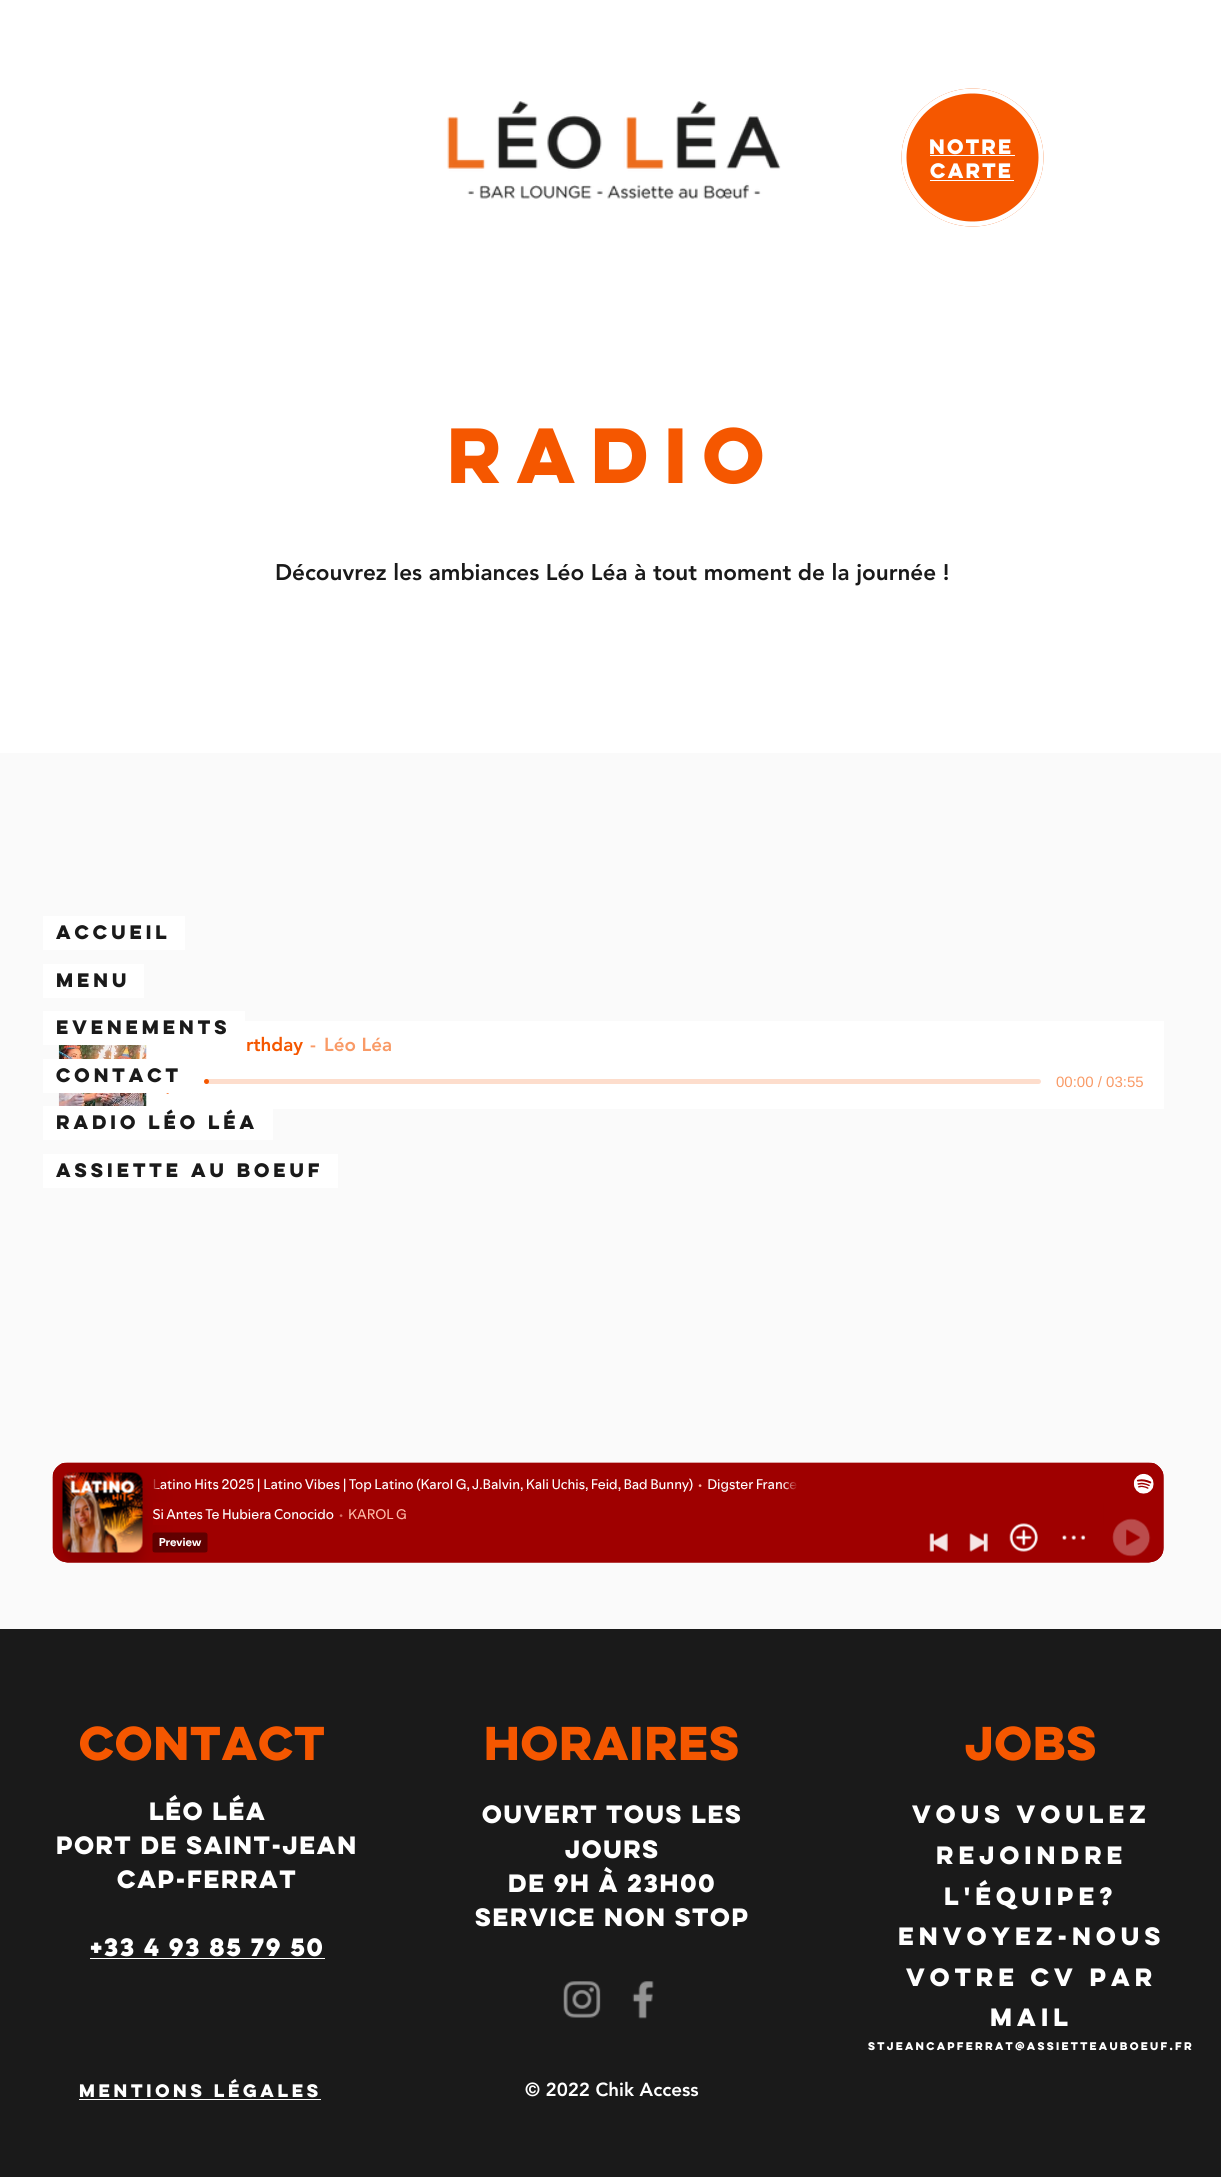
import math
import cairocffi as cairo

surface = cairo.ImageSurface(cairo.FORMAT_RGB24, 1221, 2177)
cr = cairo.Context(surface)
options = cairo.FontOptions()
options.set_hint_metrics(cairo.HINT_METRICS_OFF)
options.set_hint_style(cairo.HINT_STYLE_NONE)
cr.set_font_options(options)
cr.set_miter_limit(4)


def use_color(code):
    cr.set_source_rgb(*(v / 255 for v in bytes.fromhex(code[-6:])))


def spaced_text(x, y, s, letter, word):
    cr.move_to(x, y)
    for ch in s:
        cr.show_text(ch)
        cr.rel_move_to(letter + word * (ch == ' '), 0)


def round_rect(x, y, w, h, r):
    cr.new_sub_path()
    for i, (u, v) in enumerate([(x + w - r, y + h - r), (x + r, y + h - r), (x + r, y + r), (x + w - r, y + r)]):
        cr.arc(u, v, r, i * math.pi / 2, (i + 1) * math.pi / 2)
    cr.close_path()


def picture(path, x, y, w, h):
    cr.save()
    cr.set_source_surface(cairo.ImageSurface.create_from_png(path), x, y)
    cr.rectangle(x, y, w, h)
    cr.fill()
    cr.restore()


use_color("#ffffff")
cr.paint()
picture("img1.png", 447, 101, 334, 98)
use_color("#f55700")
cr.new_path()
cr.move_to(972.5, 88.5)
cr.curve_to(1011.5, 88.5, 1043.5, 119.5, 1043.5, 157.5)
cr.curve_to(1043.5, 195.5, 1011.5, 226.5, 972.5, 226.5)
cr.curve_to(933.5, 226.5, 901.5, 195.5, 901.5, 157.5)
cr.curve_to(901.5, 119.5, 933.5, 88.5, 972.5, 88.5)
cr.close_path()
cr.fill()
cr.new_path()
cr.move_to(972.5, 91)
cr.curve_to(1010.5, 91, 1041, 121, 1041, 157.5)
cr.curve_to(1041, 194, 1010.5, 224, 972.5, 224)
cr.curve_to(934.5, 224, 904, 194, 904, 157.5)
cr.curve_to(904, 121, 934.5, 91, 972.5, 91)
cr.close_path()
use_color("#ffffff")
cr.set_line_width(5)
cr.stroke()
cr.select_font_face("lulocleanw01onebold", cairo.FONT_SLANT_NORMAL, cairo.FONT_WEIGHT_BOLD)
cr.set_font_size(18.75)
spaced_text(929, 154, "NOTRE", -2, 0)
cr.rectangle(930, 155, 85, 1)
cr.fill()
spaced_text(930, 178, "cARTE", -2, 0)
cr.rectangle(930, 180, 84, 1)
cr.fill()
use_color("#fafafa")
cr.rectangle(0, 753, 1221, 876)
cr.fill()
use_color("#ffffff")
cr.rectangle(43, 916, 142, 34)
cr.fill()
cr.set_font_size(17.5)
use_color("#1a1a1a")
cr.move_to(56, 939)
cr.show_text("Accueil")
use_color("#ffffff")
cr.rectangle(43, 964, 101, 34)
cr.fill()
use_color("#1a1a1a")
cr.move_to(56, 987)
cr.show_text("Menu")
use_color("#ffffff")
cr.rectangle(146, 1021, 1018, 88)
cr.fill()
cr.rectangle(43, 1011, 202, 34)
cr.fill()
use_color("#1a1a1a")
cr.move_to(56, 1034)
cr.show_text("EVENEMENTS")
picture("img2.png", 58, 1045, 89, 61)
use_color("#ffffff")
cr.rectangle(43, 1059, 104, 34)
cr.fill()
use_color("#1a1a1a")
cr.move_to(56, 1082)
cr.show_text("CONTACT")
use_color("#ffffff")
cr.rectangle(43, 1106, 230, 34)
cr.fill()
use_color("#1a1a1a")
cr.move_to(56, 1129)
cr.show_text("Radio Léo Léa")
use_color("#ffffff")
cr.rectangle(43, 1154, 295, 34)
cr.fill()
use_color("#1a1a1a")
cr.move_to(56, 1177)
cr.show_text("Assiette au boeuf")
cr.set_font_size(70)
use_color("#f55700")
cr.move_to(447, 483)
cr.show_text("Radio")
cr.select_font_face("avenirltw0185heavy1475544 Black")
cr.set_font_size(22.5)
use_color("#1a1a1a")
cr.move_to(275, 580)
cr.show_text("Découvrez les ambiances Léo Léa à tout moment de la journée !")
cr.save()
cr.rectangle(166, 1036, 137, 19)
cr.clip()
cr.set_font_size(18.75)
use_color("#f55700")
cr.move_to(246, 1051)
cr.show_text("rthday")
cr.restore()
cr.set_font_size(18.75)
use_color("#f99a66")
cr.move_to(310, 1051)
cr.show_text("-")
cr.move_to(324, 1051)
cr.show_text("Léo Léa")
use_color("#fdddcc")
round_rect(206, 1079, 835, 5, 2.5)
cr.fill()
use_color("#f55700")
cr.arc(206.5, 1081.5, 2.5, 0, 2 * math.pi)
cr.fill()
cr.select_font_face("Liberation Sans")
cr.set_font_size(15)
use_color("#f99a66")
cr.move_to(1056, 1087)
cr.show_text("00:00 / 03:55")
picture("img3.png", 166, 1093, 3, 1)
picture("img4.png", 52, 1462, 1112, 101)
use_color("#1a1a1a")
cr.rectangle(0, 1629, 1221, 548)
cr.fill()
cr.select_font_face("lulocleanw01onebold", cairo.FONT_SLANT_NORMAL, cairo.FONT_WEIGHT_BOLD)
cr.set_font_size(42.5)
use_color("#f55700")
spaced_text(79, 1760, "CONTACT", -8.5, 0)
spaced_text(484, 1760, "HORAIRES", -8.5, 0)
spaced_text(965, 1760, "jobs", -8.5, 0)
cr.set_font_size(22.5)
use_color("#ffffff")
spaced_text(149, 1820, "Léo léa", -3.4, 0)
spaced_text(56, 1854, "port de saint-jean", -3.4, 0)
spaced_text(117, 1888, "cap-ferrat", -3.4, 0)
spaced_text(90, 1956, "+33 4 93 85 79 50", -3.4, 0)
cr.rectangle(90, 1958, 235, 1)
cr.fill()
spaced_text(482, 1823, "Ouvert tous les", -3.4, 0)
spaced_text(565, 1858, "jours", -3.4, 0)
spaced_text(508, 1892, "de 9h à 23h00", -3.4, 0)
spaced_text(475, 1926, "service non stop", -3.4, 0)
cr.move_to(912, 1823)
cr.show_text("VOUS VOULEZ")
cr.move_to(936, 1864)
cr.show_text("REJOINDRE")
cr.move_to(944, 1905)
cr.show_text("L'ÉQUIPE?")
cr.move_to(898, 1945)
cr.show_text("ENVOYEZ-NOUS")
cr.move_to(906, 1986)
cr.show_text("VOTRE CV par")
cr.move_to(990, 2026)
cr.show_text("MAIL")
cr.set_font_size(10)
cr.move_to(868, 2050)
cr.show_text("stjeancapferrat@assietteauboeuf.fr")
picture("img5.png", 563, 1981, 38, 37)
picture("img6.png", 632, 1981, 22, 38)
cr.set_font_size(16.25)
cr.move_to(79, 2097)
cr.show_text("Mentions Légales")
cr.rectangle(79, 2099, 242, 1)
cr.fill()
cr.select_font_face("avenirltw0185heavy1475544 Black")
cr.set_font_size(18.75)
cr.move_to(525, 2096)
cr.show_text("© 2022 Chik Access")
surface.write_to_png("result.png")
